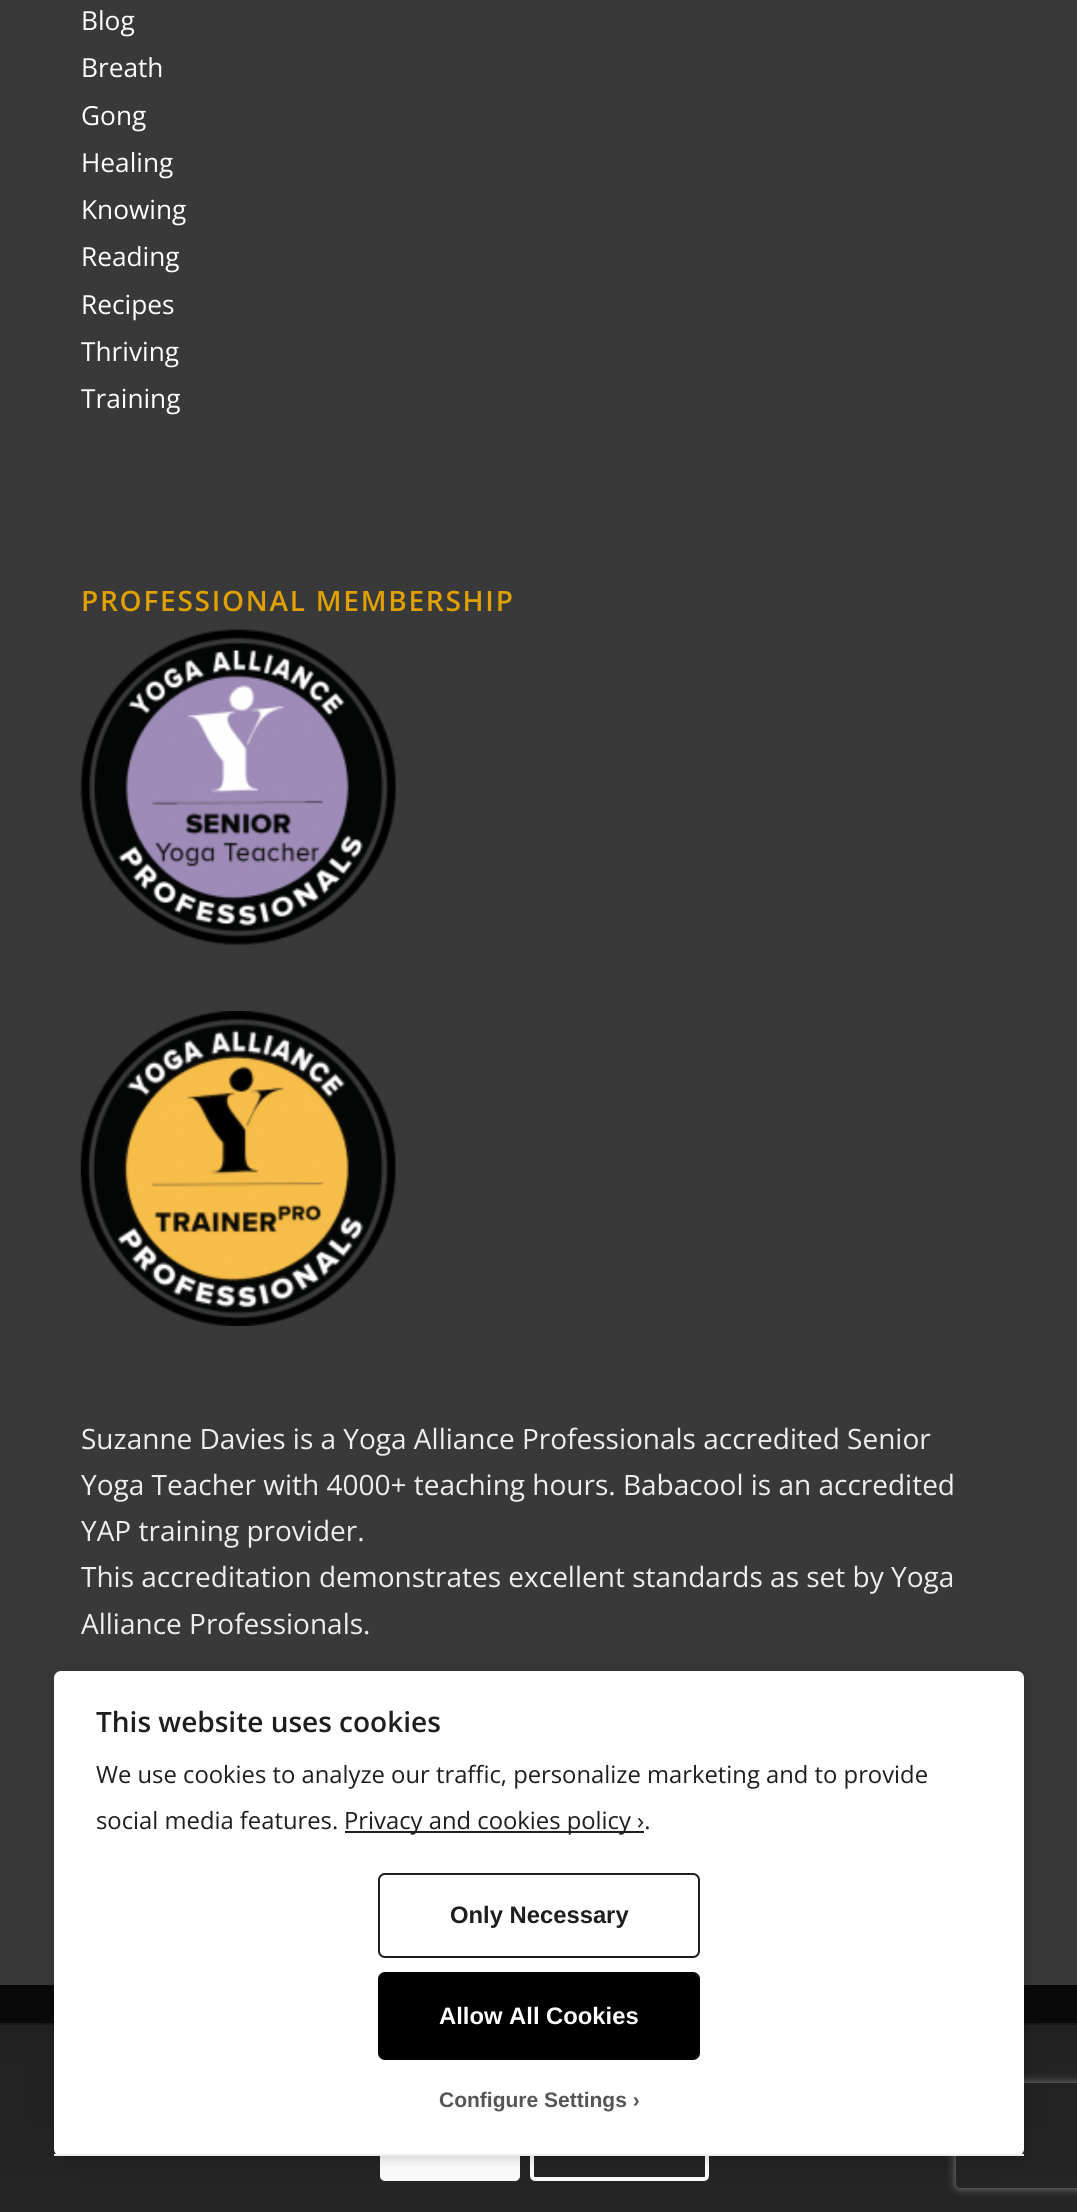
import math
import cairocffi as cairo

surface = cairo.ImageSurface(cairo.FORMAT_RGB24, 1077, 2212)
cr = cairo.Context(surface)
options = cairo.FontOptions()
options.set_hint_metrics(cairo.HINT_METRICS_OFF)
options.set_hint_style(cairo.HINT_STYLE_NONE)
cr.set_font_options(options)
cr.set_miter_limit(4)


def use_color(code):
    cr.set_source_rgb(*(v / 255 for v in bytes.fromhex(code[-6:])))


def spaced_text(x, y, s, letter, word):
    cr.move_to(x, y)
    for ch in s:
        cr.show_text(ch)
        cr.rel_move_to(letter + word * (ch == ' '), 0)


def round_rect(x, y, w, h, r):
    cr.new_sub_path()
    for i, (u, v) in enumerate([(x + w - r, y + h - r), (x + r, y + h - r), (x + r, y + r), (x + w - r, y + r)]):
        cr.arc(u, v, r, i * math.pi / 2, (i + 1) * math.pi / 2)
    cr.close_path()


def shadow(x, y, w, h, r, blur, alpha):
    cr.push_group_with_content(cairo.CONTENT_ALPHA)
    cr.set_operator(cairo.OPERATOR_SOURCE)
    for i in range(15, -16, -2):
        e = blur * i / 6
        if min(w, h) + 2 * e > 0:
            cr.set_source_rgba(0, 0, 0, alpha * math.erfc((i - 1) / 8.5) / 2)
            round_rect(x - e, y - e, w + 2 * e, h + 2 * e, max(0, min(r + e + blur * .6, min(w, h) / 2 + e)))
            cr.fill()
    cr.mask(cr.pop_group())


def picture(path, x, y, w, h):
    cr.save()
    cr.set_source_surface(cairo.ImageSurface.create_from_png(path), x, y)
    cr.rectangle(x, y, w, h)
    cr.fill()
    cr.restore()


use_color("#393939")
cr.paint()
use_color("#090909")
cr.rectangle(0, 1985, 1077, 38)
cr.fill()
cr.select_font_face("Open Sans")
cr.set_font_size(26.25)
use_color("#ffffff")
cr.move_to(81, 30)
cr.show_text("Blog")
cr.move_to(81, 77)
cr.show_text("Breath")
cr.move_to(81, 125)
cr.show_text("Gong")
cr.move_to(81, 172)
cr.show_text("Healing")
cr.move_to(81, 219)
cr.show_text("Knowing")
cr.move_to(81, 266)
cr.show_text("Reading")
cr.move_to(81, 314)
cr.show_text("Recipes")
cr.move_to(81, 361)
cr.show_text("Thriving")
cr.move_to(81, 408)
cr.show_text("Training")
cr.select_font_face("Open Sans SemiBold")
cr.set_font_size(28)
use_color("#dfa000")
spaced_text(81, 611, "PROFESSIONAL MEMBERSHIP", 1.75, 0)
picture("img1.png", 80, 629, 316, 316)
picture("img2.png", 80, 1011, 316, 315)
cr.select_font_face("Open Sans")
use_color("#eeeeee")
cr.move_to(81, 1449)
cr.show_text("Suzanne Davies is a Yoga Alliance Professionals accredited Senior")
cr.move_to(81, 1495)
cr.show_text("Yoga Teacher with 4000+ teaching hours. Babacool is an accredited")
cr.move_to(81, 1541)
cr.show_text("YAP training provider.")
cr.move_to(81, 1587)
cr.show_text("This accreditation demonstrates excellent standards as set by Yoga")
cr.move_to(81, 1634)
cr.show_text("Alliance Professionals.")
use_color("#262626")
cr.rectangle(0, 2025, 1077, 187)
cr.fill()
picture("img3.png", 0, 2022, 1077, 190)
use_color("#181818")
cr.rectangle(0, 2023, 1077, 2)
cr.fill()
use_color("#ffffff")
round_rect(380, 2107, 140, 74, 5)
cr.fill()
round_rect(532, 2109, 175, 70, 3)
cr.set_line_width(4)
cr.stroke()
use_color("#000000")
shadow(56, 1675, 970, 485, 7, 4.5, 0.1)
shadow(54, 1671, 970, 485, 7, 22, 0.1)
cr.save()
cr.set_fill_rule(cairo.FILL_RULE_EVEN_ODD)
cr.new_path()
cr.move_to(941, 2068)
cr.line_to(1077, 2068)
cr.line_to(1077, 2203)
cr.line_to(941, 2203)
cr.close_path()
cr.move_to(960, 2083)
cr.line_to(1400, 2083)
cr.curve_to(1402, 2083, 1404, 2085, 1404, 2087)
cr.line_to(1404, 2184)
cr.curve_to(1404, 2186, 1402, 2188, 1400, 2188)
cr.line_to(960, 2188)
cr.curve_to(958, 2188, 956, 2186, 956, 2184)
cr.line_to(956, 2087)
cr.curve_to(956, 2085, 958, 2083, 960, 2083)
cr.close_path()
cr.clip()
use_color("#808080")
shadow(956, 2083, 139, 105, 4, 4.5, 1)
cr.restore()
use_color("#ffffff")
round_rect(54, 1671, 970, 485, 7)
cr.fill()
cr.select_font_face("Open Sans SemiBold")
use_color("#1e1e1e")
cr.move_to(96, 1732)
cr.show_text("This website uses cookies")
cr.select_font_face("Open Sans")
cr.set_font_size(23.8)
cr.move_to(96, 1783)
cr.show_text("We use cookies to analyze our traffic, personalize marketing and to provide")
cr.move_to(96, 1829)
cr.show_text("social media features.")
cr.rectangle(345, 1831, 299, 2)
cr.fill()
cr.move_to(344, 1829)
cr.show_text("Privacy and cookies policy ›.")
round_rect(379, 1874, 320, 83, 6)
cr.set_line_width(2)
cr.stroke()
cr.select_font_face("Liberation Sans", cairo.FONT_SLANT_NORMAL, cairo.FONT_WEIGHT_BOLD)
cr.move_to(450, 1923)
cr.show_text("Only Necessary")
use_color("#000000")
round_rect(379, 1973, 320, 86, 6)
cr.fill_preserve()
cr.stroke()
use_color("#ffffff")
cr.move_to(439, 2024)
cr.show_text("Allow All Cookies")
cr.set_font_size(21)
use_color("#565656")
cr.move_to(439, 2107)
cr.show_text("Configure Settings ›")
use_color("#eeeeee")
cr.rectangle(54, 2154, 970, 2)
cr.fill()
surface.write_to_png("result.png")
